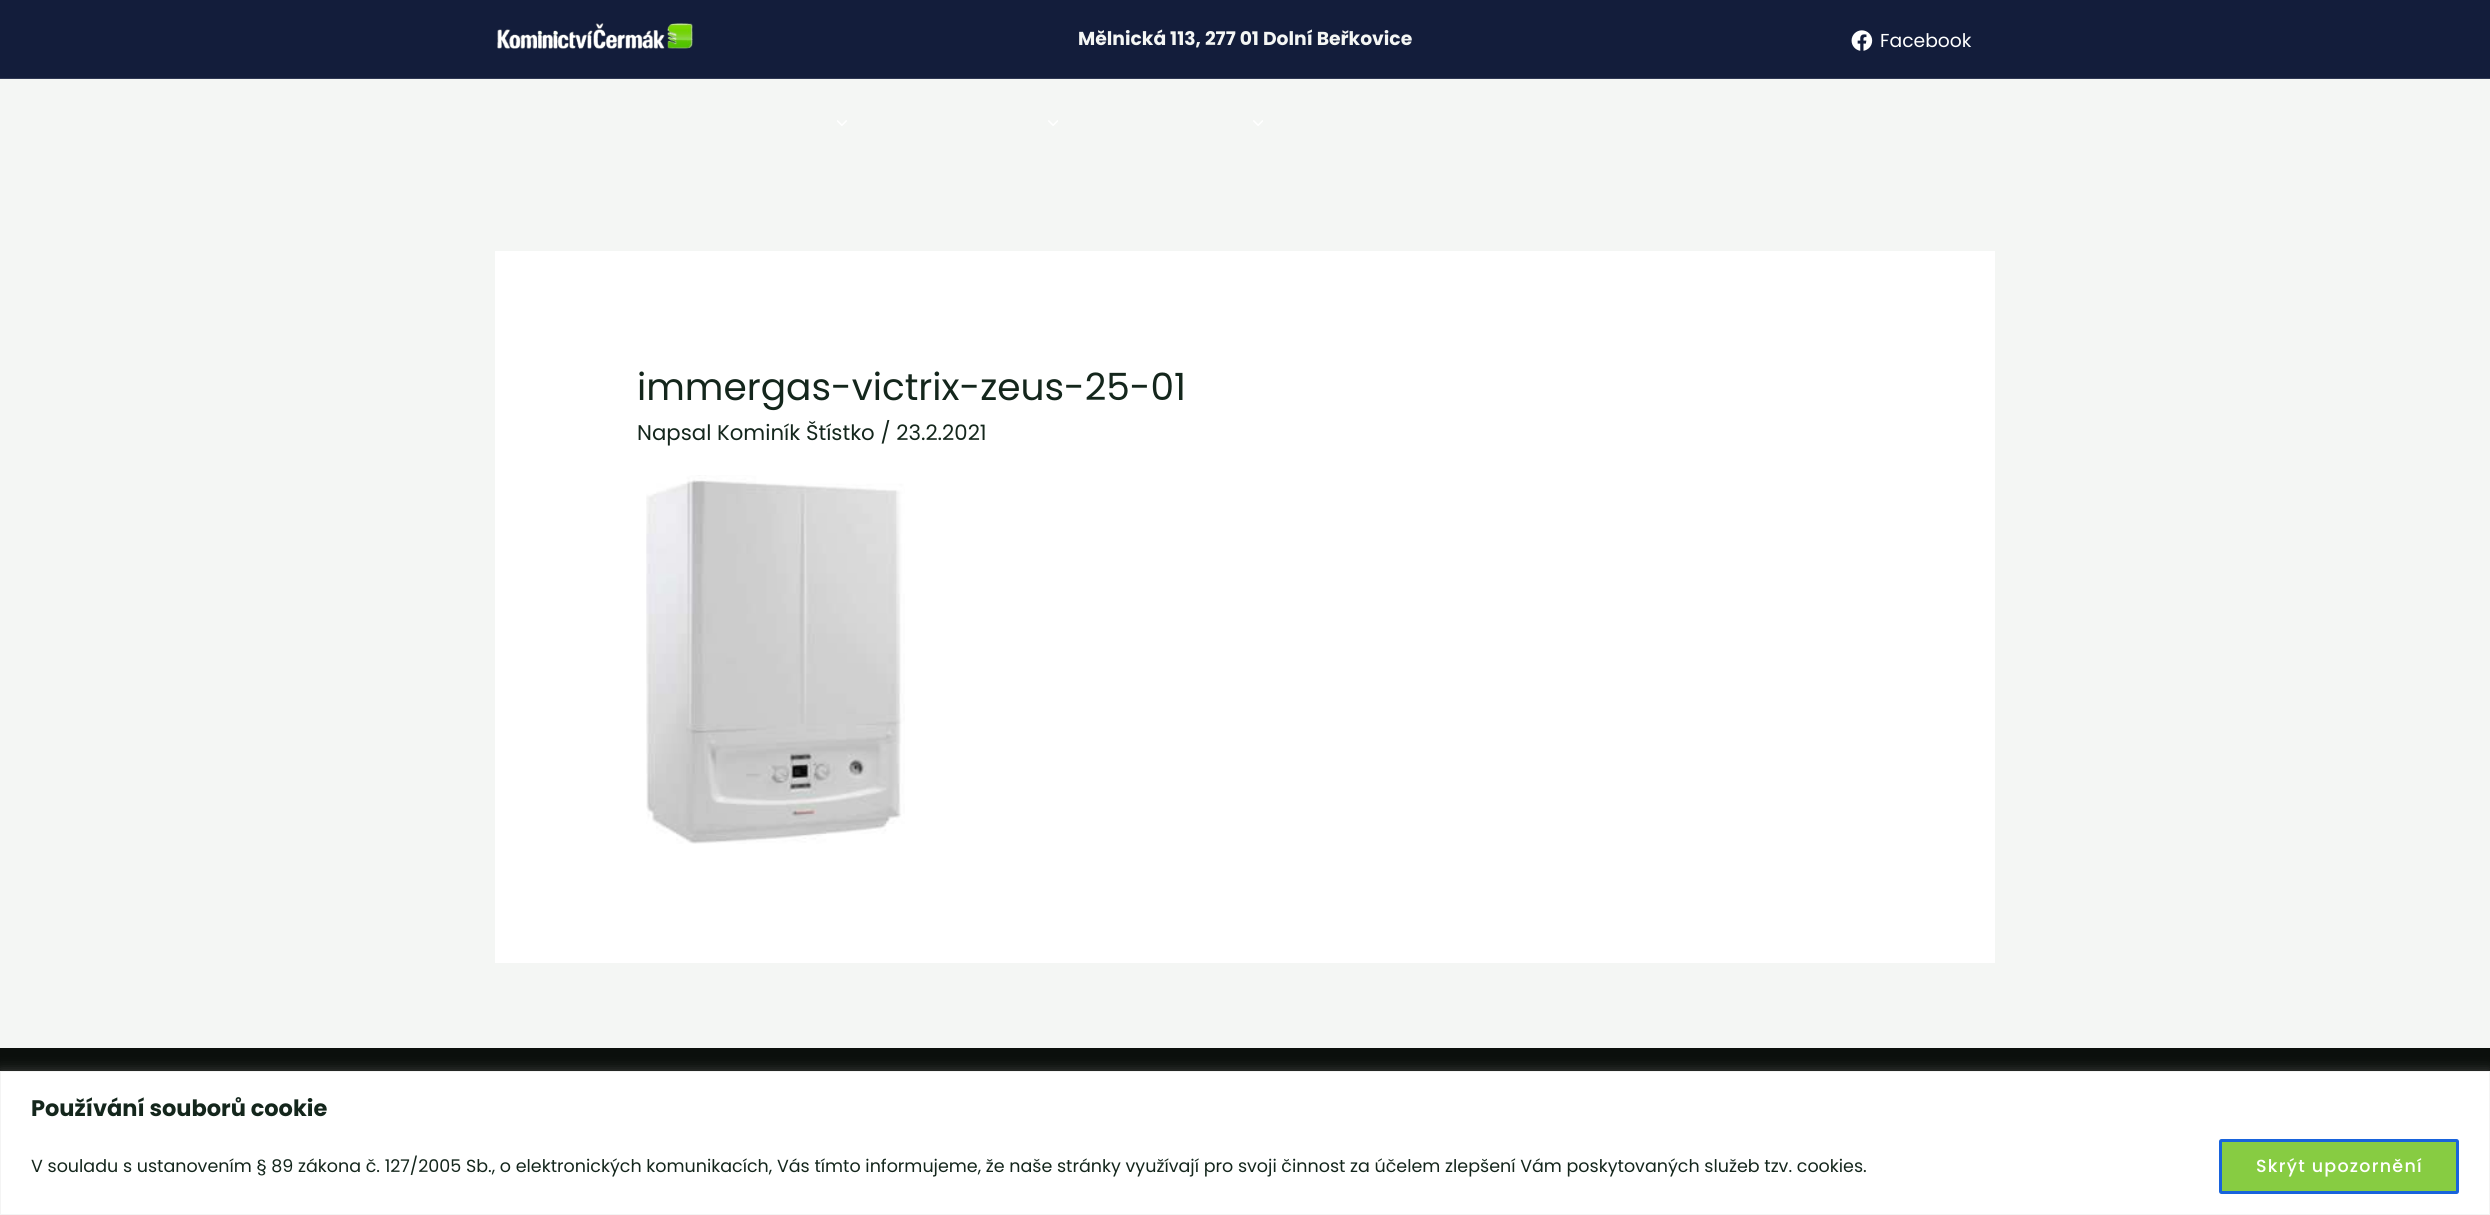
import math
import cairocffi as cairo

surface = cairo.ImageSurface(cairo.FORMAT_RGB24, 2490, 1215)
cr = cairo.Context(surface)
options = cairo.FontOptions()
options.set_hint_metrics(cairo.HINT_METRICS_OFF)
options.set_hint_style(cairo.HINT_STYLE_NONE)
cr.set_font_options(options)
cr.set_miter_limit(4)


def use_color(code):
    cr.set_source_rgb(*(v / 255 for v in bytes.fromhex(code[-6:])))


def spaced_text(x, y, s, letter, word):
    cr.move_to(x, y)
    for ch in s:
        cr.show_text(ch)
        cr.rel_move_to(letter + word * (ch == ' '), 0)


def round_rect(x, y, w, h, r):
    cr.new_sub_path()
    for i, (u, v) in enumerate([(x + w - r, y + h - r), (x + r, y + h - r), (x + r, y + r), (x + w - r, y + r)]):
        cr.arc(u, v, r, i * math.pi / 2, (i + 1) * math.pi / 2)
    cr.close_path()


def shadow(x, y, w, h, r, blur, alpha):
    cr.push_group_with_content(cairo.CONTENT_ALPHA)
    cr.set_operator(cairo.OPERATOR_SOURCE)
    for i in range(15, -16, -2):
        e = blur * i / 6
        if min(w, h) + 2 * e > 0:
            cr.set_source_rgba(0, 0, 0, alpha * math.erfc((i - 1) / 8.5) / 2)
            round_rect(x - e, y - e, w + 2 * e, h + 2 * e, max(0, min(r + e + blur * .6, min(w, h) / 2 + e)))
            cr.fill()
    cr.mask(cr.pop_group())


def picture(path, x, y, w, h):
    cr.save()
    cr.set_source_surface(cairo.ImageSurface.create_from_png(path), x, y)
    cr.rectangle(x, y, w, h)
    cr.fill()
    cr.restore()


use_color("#f4f6f4")
cr.paint()
use_color("#131d3b")
cr.rectangle(0, 0, 2490, 78)
cr.fill()
use_color("#2f3853")
cr.rectangle(0, 78, 2490, 1)
cr.fill()
picture("img1.png", 497, 23, 196, 26)
cr.select_font_face("Poppins", cairo.FONT_SLANT_NORMAL, cairo.FONT_WEIGHT_BOLD)
cr.set_font_size(18.75)
use_color("#f4f6f4")
cr.move_to(1078, 45)
cr.show_text("Mělnická 113, 277 01 Dolní Beřkovice")
picture("img2.png", 1851, 30, 22, 21)
cr.select_font_face("Poppins")
use_color("#ffffff")
cr.move_to(1880, 47)
cr.show_text("Facebook")
picture("img3.png", 837, 120, 10, 6)
picture("img4.png", 1048, 120, 10, 6)
picture("img4.png", 1253, 120, 10, 6)
cr.rectangle(495, 251, 1500, 712)
cr.fill()
cr.set_font_size(37.5)
use_color("#14261c")
cr.move_to(637, 400)
cr.show_text("immergas-victrix-zeus-25-01")
cr.set_font_size(21.25)
cr.move_to(637, 440)
cr.show_text("Napsal Kominík Štístko / 23.2.2021")
picture("img5.png", 646, 475, 259, 369)
use_color("#0b0f0c")
cr.rectangle(0, 1048, 2490, 23)
cr.fill()
use_color("#acabab")
shadow(0, 1070, 2490, 144, 0, 6, 0.3)
use_color("#ffffff")
cr.rectangle(0.5, 1071.5, 2489, 143)
cr.fill_preserve()
use_color("#f4f4f4")
cr.set_line_width(1)
cr.stroke()
cr.select_font_face("Poppins", cairo.FONT_SLANT_NORMAL, cairo.FONT_WEIGHT_BOLD)
cr.set_font_size(22.5)
use_color("#14261c")
cr.move_to(31, 1116)
cr.show_text("Používání souborů cookie")
cr.select_font_face("Poppins")
cr.set_font_size(17.5)
cr.move_to(31, 1172)
cr.show_text("V souladu s ustanovením § 89 zákona č. 127/2005 Sb., o elektronických komunikacích, Vás tímto informujeme, že naše stránky využívají pro svoji činnost za účelem zlepšení Vám poskytovaných služeb tzv. cookies.")
use_color("#87cc42")
round_rect(2220.5, 1140.5, 237, 52, 1)
cr.fill_preserve()
use_color("#1863dc")
cr.set_line_width(3)
cr.stroke()
cr.select_font_face("Poppins Medium")
use_color("#ffffff")
spaced_text(2256, 1172, "Skrýt upozornění", 1.25, 0)
surface.write_to_png("result.png")
